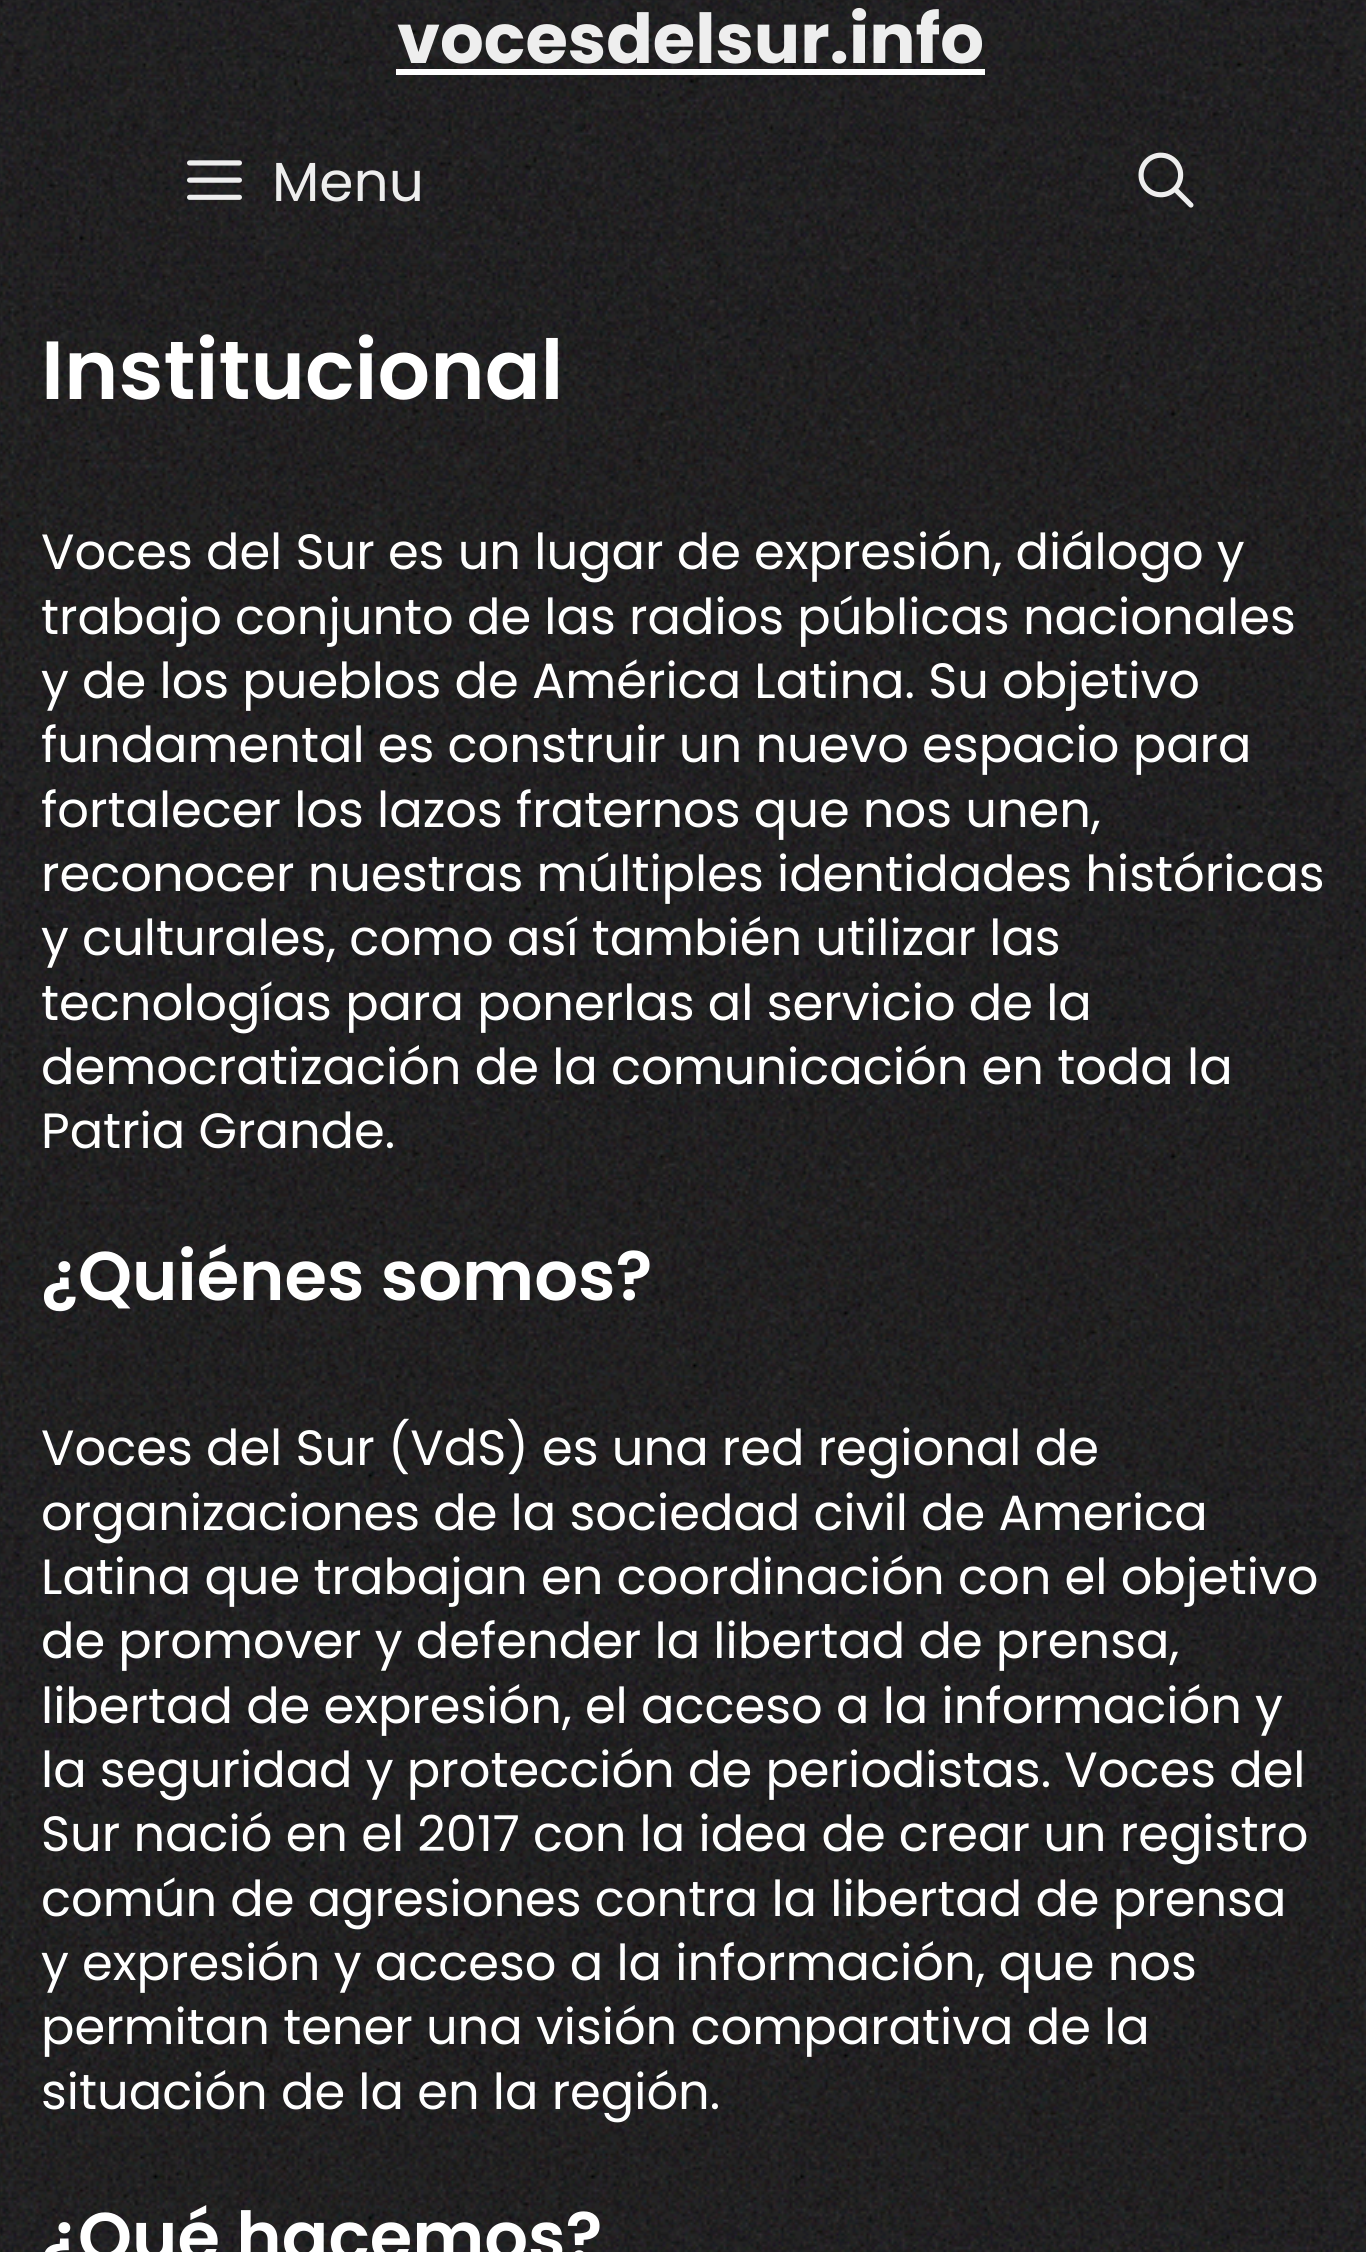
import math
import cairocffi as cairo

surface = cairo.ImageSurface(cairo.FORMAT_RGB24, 1366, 2252)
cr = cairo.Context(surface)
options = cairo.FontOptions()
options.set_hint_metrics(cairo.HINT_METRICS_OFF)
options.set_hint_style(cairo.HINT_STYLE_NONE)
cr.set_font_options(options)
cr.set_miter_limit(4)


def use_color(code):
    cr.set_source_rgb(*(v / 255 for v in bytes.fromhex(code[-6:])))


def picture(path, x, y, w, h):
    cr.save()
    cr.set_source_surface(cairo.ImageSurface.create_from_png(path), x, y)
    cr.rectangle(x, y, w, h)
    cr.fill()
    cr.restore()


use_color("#ffffff")
cr.paint()
picture("img1.png", 0, 0, 1366, 2252)
cr.select_font_face("Poppins", cairo.FONT_SLANT_NORMAL, cairo.FONT_WEIGHT_BOLD)
cr.set_font_size(68.75)
use_color("#eeeeee")
cr.move_to(397, 63)
cr.show_text("vocesdelsur.info")
use_color("#ffffff")
cr.rectangle(396, 69, 589, 6)
cr.fill()
picture("img2.png", 187, 160, 55, 40)
cr.select_font_face("Poppins")
cr.set_font_size(55)
use_color("#eeeeee")
cr.move_to(272, 201)
cr.show_text("Menu")
picture("img3.png", 1138, 152, 56, 56)
cr.select_font_face("Poppins SemiBold")
cr.set_font_size(82.5)
use_color("#ffffff")
cr.move_to(41, 399)
cr.show_text("Institucional")
cr.select_font_face("Poppins")
cr.set_font_size(49.5)
cr.move_to(41, 569)
cr.show_text("Voces del Sur es un lugar de expresión, diálogo y")
cr.move_to(41, 634)
cr.show_text("trabajo conjunto de las radios públicas nacionales")
cr.move_to(41, 698)
cr.show_text("y de los pueblos de América Latina. Su objetivo")
cr.move_to(41, 762)
cr.show_text("fundamental es construir un nuevo espacio para")
cr.move_to(41, 827)
cr.show_text("fortalecer los lazos fraternos que nos unen,")
cr.move_to(41, 891)
cr.show_text("reconocer nuestras múltiples identidades históricas")
cr.move_to(41, 955)
cr.show_text("y culturales, como así también utilizar las")
cr.move_to(41, 1020)
cr.show_text("tecnologías para ponerlas al servicio de la")
cr.move_to(41, 1084)
cr.show_text("democratización de la comunicación en toda la")
cr.move_to(41, 1148)
cr.show_text("Patria Grande.")
cr.select_font_face("Poppins SemiBold")
cr.set_font_size(68.75)
cr.move_to(41, 1300)
cr.show_text("¿Quiénes somos?")
cr.select_font_face("Poppins")
cr.set_font_size(49.5)
cr.move_to(41, 1465)
cr.show_text("Voces del Sur (VdS) es una red regional de")
cr.move_to(41, 1530)
cr.show_text("organizaciones de la sociedad civil de America")
cr.move_to(41, 1594)
cr.show_text("Latina que trabajan en coordinación con el objetivo")
cr.move_to(41, 1658)
cr.show_text("de promover y defender la libertad de prensa,")
cr.move_to(41, 1723)
cr.show_text("libertad de expresión, el acceso a la información y")
cr.move_to(41, 1787)
cr.show_text("la seguridad y protección de periodistas. Voces del")
cr.move_to(41, 1851)
cr.show_text("Sur nació en el 2017 con la idea de crear un registro")
cr.move_to(41, 1916)
cr.show_text("común de agresiones contra la libertad de prensa")
cr.move_to(41, 1980)
cr.show_text("y expresión y acceso a la información, que nos")
cr.move_to(41, 2044)
cr.show_text("permitan tener una visión comparativa de la")
cr.move_to(41, 2109)
cr.show_text("situación de la en la región.")
cr.select_font_face("Poppins SemiBold")
cr.set_font_size(68.75)
cr.move_to(41, 2261)
cr.show_text("¿Qué hacemos?")
surface.write_to_png("result.png")
